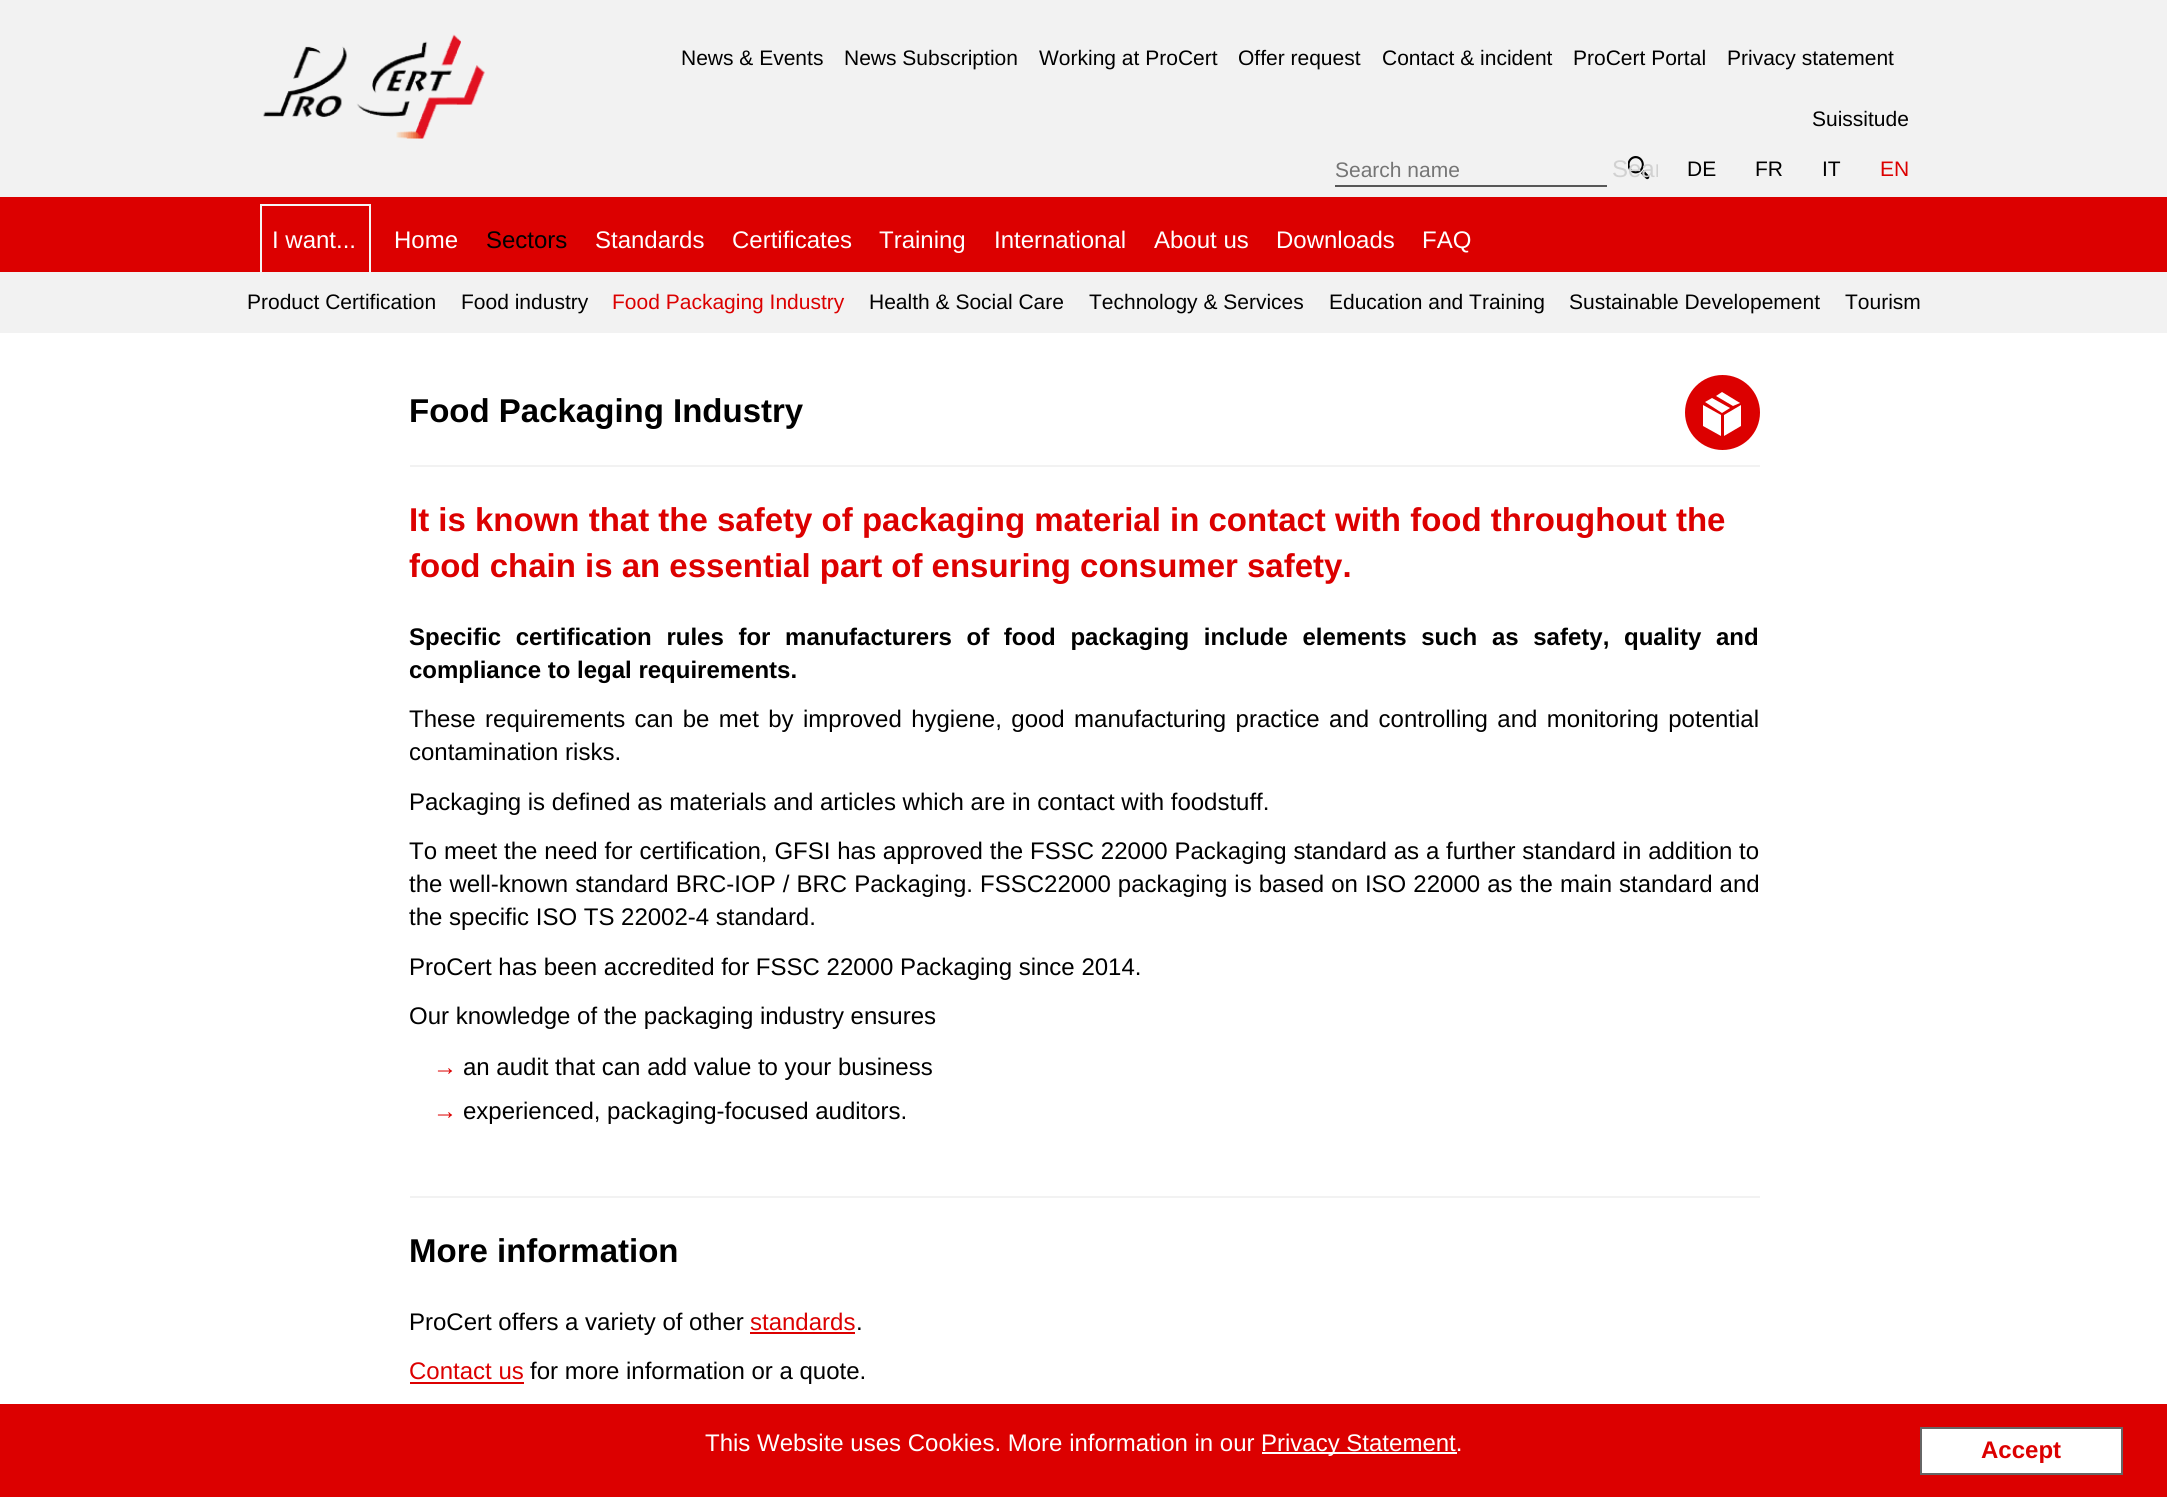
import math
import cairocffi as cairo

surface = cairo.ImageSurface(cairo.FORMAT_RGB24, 2167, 1497)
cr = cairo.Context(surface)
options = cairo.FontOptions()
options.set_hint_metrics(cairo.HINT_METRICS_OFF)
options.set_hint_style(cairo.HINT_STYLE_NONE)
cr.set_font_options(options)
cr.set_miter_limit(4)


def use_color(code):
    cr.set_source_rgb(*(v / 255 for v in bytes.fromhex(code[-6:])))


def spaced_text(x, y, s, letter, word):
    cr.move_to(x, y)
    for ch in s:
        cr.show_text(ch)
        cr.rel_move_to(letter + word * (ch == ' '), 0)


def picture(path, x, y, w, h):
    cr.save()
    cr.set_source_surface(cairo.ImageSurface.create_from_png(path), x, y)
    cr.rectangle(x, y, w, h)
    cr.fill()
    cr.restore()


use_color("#ffffff")
cr.paint()
use_color("#f2f2f2")
cr.rectangle(0, 0, 2167, 197)
cr.fill()
picture("img1.png", 263, 34, 222, 105)
cr.select_font_face("Liberation Sans")
cr.set_font_size(21)
use_color("#000000")
cr.move_to(681, 65)
cr.show_text("News & Events")
cr.move_to(844, 65)
cr.show_text("News Subscription")
cr.move_to(1039, 65)
cr.show_text("Working at ProCert")
cr.move_to(1238, 65)
cr.show_text("Offer request")
cr.move_to(1382, 65)
cr.show_text("Contact & incident")
cr.move_to(1573, 65)
cr.show_text("ProCert Portal")
cr.move_to(1727, 65)
cr.show_text("Privacy statement")
cr.move_to(1812, 126)
cr.show_text("Suissitude")
use_color("#575757")
cr.rectangle(1335, 185, 272, 2)
cr.fill()
use_color("#757575")
cr.move_to(1335, 177)
cr.show_text("Search name")
picture("img2.png", 1628, 156, 22, 24)
cr.save()
cr.rectangle(1613, 147, 45, 45)
cr.clip()
cr.set_font_size(24)
use_color("#d1d1d1")
cr.move_to(1612, 177)
cr.show_text("Sear")
cr.restore()
use_color("#000000")
cr.move_to(1687, 176)
cr.show_text("DE")
cr.move_to(1755, 176)
cr.show_text("FR")
cr.move_to(1822, 176)
cr.show_text("IT")
use_color("#dc0000")
cr.move_to(1880, 176)
cr.show_text("EN")
cr.rectangle(0, 197, 2167, 75)
cr.fill()
cr.set_font_size(24)
use_color("#ffffff")
cr.move_to(595, 248)
cr.show_text("Standards")
cr.move_to(732, 248)
cr.show_text("Certificates")
cr.move_to(879, 248)
cr.show_text("Training")
cr.move_to(994, 248)
cr.show_text("International")
cr.move_to(1154, 248)
cr.show_text("About us")
cr.move_to(1276, 248)
cr.show_text("Downloads")
use_color("#000000")
cr.move_to(486, 248)
cr.show_text("Sectors")
cr.rectangle(261, 205, 109, 69)
use_color("#f5f5f5")
cr.stroke()
use_color("#f2f2f2")
cr.rectangle(0, 272, 2167, 61)
cr.fill()
cr.set_font_size(21)
use_color("#000000")
cr.move_to(247, 309)
cr.show_text("Product Certification")
cr.move_to(461, 309)
cr.show_text("Food industry")
use_color("#dc0000")
cr.move_to(612, 309)
cr.show_text("Food Packaging Industry")
use_color("#000000")
cr.move_to(869, 309)
cr.show_text("Health & Social Care")
cr.move_to(1089, 309)
cr.show_text("Technology & Services")
cr.move_to(1329, 309)
cr.show_text("Education and Training")
cr.move_to(1569, 309)
cr.show_text("Sustainable Developement")
cr.move_to(1845, 309)
cr.show_text("Tourism")
cr.set_font_size(24)
use_color("#ffffff")
cr.move_to(394, 248)
cr.show_text("Home")
cr.move_to(1422, 248)
cr.show_text("FAQ")
cr.move_to(272, 248)
cr.show_text("I want...")
cr.select_font_face("Liberation Sans", cairo.FONT_SLANT_NORMAL, cairo.FONT_WEIGHT_BOLD)
cr.set_font_size(33)
use_color("#000000")
cr.move_to(409, 422)
cr.show_text("Food Packaging Industry")
use_color("#dc0000")
cr.new_path()
cr.arc(1722.5, 412.5, 37.5, 0, 2 * math.pi)
cr.fill()
use_color("#ffffff")
cr.new_path()
cr.move_to(1712, 398)
cr.line_to(1705, 402)
cr.line_to(1722, 413)
cr.line_to(1730, 408)
cr.close_path()
cr.move_to(1740, 403)
cr.line_to(1722, 392)
cr.line_to(1716, 396)
cr.line_to(1733, 406)
cr.close_path()
cr.move_to(1724, 415)
cr.line_to(1724, 436)
cr.line_to(1741, 426)
cr.line_to(1741, 405)
cr.close_path()
cr.move_to(1703, 426)
cr.line_to(1721, 436)
cr.line_to(1721, 415)
cr.line_to(1703, 405)
cr.close_path()
cr.fill()
use_color("#f2f2f2")
cr.rectangle(410, 465, 1350, 2)
cr.fill()
use_color("#dc0000")
cr.move_to(409, 531)
cr.show_text("It is known that the safety of packaging material in contact with food throughout the")
cr.move_to(409, 577)
cr.show_text("food chain is an essential part of ensuring consumer safety.")
cr.set_font_size(24)
use_color("#000000")
spaced_text(409, 645, "Specific certification rules for manufacturers of food packaging include elements such as safety, quality and", 0, 8)
cr.move_to(409, 678)
cr.show_text("compliance to legal requirements.")
cr.select_font_face("Liberation Sans")
spaced_text(409, 727, "These requirements can be met by improved hygiene, good manufacturing practice and controlling and monitoring potential", 0, 2.75)
cr.move_to(409, 760)
cr.show_text("contamination risks.")
cr.move_to(409, 810)
cr.show_text("Packaging is defined as materials and articles which are in contact with foodstuff.")
spaced_text(409, 859, "To meet the need for certification, GFSI has approved the FSSC 22000 Packaging standard as a further standard in addition to", 0, 0.2)
spaced_text(409, 892, "the well-known standard BRC-IOP / BRC Packaging. FSSC22000 packaging is based on ISO 22000 as the main standard and", 0, 0.4)
cr.move_to(409, 925)
cr.show_text("the specific ISO TS 22002-4 standard.")
cr.move_to(409, 975)
cr.show_text("ProCert has been accredited for FSSC 22000 Packaging since 2014.")
cr.move_to(409, 1024)
cr.show_text("Our knowledge of the packaging industry ensures")
use_color("#dc0000")
cr.move_to(433, 1075)
cr.show_text("→")
use_color("#000000")
cr.move_to(463, 1075)
cr.show_text("an audit that can add value to your business")
use_color("#dc0000")
cr.move_to(433, 1119)
cr.show_text("→")
use_color("#000000")
cr.move_to(463, 1119)
cr.show_text("experienced, packaging-focused auditors.")
use_color("#f2f2f2")
cr.rectangle(410, 1196, 1350, 2)
cr.fill()
cr.select_font_face("Liberation Sans", cairo.FONT_SLANT_NORMAL, cairo.FONT_WEIGHT_BOLD)
cr.set_font_size(33)
use_color("#000000")
cr.move_to(409, 1262)
cr.show_text("More information")
cr.select_font_face("Liberation Sans")
cr.set_font_size(24)
cr.move_to(409, 1330)
cr.show_text("ProCert offers a variety of other")
use_color("#dc0000")
cr.move_to(750, 1330)
cr.show_text("standards")
cr.rectangle(750, 1332, 105, 2)
cr.fill()
use_color("#000000")
cr.move_to(856, 1330)
cr.show_text(".")
use_color("#dc0000")
cr.move_to(409, 1379)
cr.show_text("Contact us")
cr.rectangle(410, 1382, 114, 2)
cr.fill()
use_color("#000000")
cr.move_to(530, 1379)
cr.show_text("for more information or a quote.")
use_color("#dc0000")
cr.rectangle(0, 1404, 2167, 93)
cr.fill()
use_color("#ffffff")
cr.move_to(705, 1451)
cr.show_text("This Website uses Cookies. More information in our")
cr.rectangle(1262, 1452, 195, 2)
cr.fill()
cr.move_to(1261, 1451)
cr.show_text("Privacy Statement.")
cr.rectangle(1921, 1428, 201, 46)
cr.fill_preserve()
use_color("#666666")
cr.stroke()
cr.select_font_face("Liberation Sans", cairo.FONT_SLANT_NORMAL, cairo.FONT_WEIGHT_BOLD)
use_color("#dc0000")
cr.move_to(1981, 1458)
cr.show_text("Accept")
surface.write_to_png("result.png")
